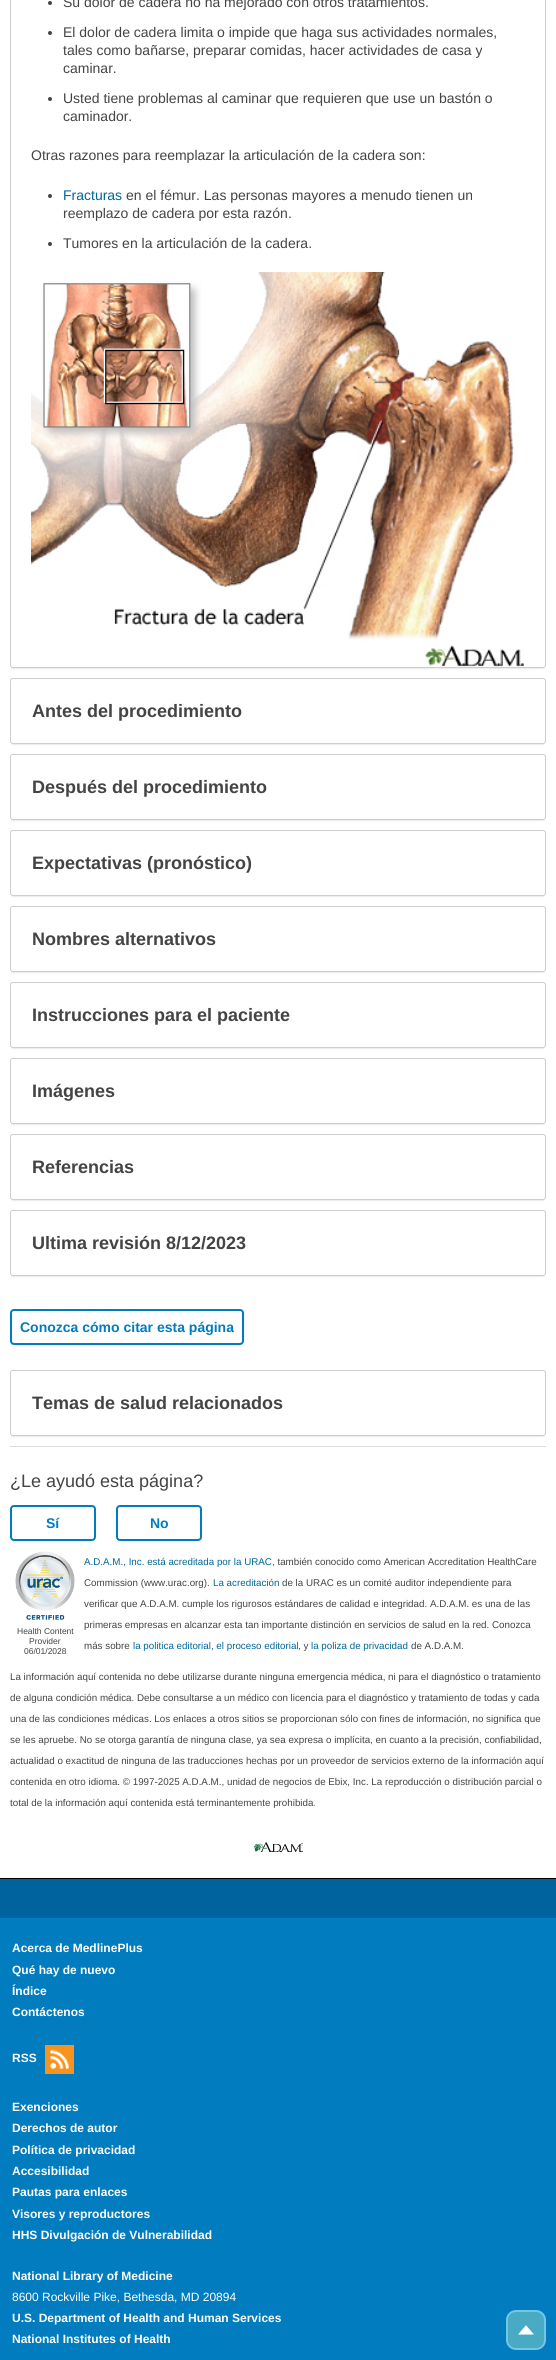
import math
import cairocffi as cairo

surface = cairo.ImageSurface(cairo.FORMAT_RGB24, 556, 2360)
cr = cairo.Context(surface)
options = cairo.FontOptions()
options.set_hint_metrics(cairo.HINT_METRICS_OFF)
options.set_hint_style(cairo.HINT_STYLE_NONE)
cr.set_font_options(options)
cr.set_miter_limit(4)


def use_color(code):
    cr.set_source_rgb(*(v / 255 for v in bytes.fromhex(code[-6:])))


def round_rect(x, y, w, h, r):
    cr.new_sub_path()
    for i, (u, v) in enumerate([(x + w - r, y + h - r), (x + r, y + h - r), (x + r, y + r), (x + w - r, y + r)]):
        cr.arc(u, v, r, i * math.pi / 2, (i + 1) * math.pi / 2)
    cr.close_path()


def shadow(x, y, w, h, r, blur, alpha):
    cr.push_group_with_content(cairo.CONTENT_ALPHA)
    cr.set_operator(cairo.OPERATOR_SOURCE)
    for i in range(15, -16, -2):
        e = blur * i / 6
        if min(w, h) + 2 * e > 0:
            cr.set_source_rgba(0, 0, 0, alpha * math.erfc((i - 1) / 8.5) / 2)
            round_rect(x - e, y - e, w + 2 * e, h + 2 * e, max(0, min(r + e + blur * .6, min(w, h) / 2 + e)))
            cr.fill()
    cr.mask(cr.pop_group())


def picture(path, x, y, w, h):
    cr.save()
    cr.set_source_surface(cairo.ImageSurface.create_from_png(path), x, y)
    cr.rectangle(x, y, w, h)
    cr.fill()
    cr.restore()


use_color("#ffffff")
cr.paint()
cr.save()
cr.set_fill_rule(cairo.FILL_RULE_EVEN_ODD)
cr.new_path()
cr.move_to(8, 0)
cr.line_to(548, 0)
cr.line_to(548, 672)
cr.line_to(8, 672)
cr.close_path()
cr.move_to(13, -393)
cr.line_to(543, -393)
cr.curve_to(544.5, -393, 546, -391.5, 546, -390)
cr.line_to(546, 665)
cr.curve_to(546, 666.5, 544.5, 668, 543, 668)
cr.line_to(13, 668)
cr.curve_to(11.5, 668, 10, 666.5, 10, 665)
cr.line_to(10, -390)
cr.curve_to(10, -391.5, 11.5, -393, 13, -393)
cr.close_path()
cr.clip()
use_color("#cccccc")
shadow(12, -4, 532, 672, 1, 1, 1)
cr.restore()
round_rect(10.5, -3.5, 535, 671, 2.5)
use_color("#cdcdcd")
cr.set_line_width(1)
cr.stroke()
use_color("#444444")
cr.arc(50, 3, 2, 0, 2 * math.pi)
cr.fill()
cr.select_font_face("Liberation Sans")
cr.set_font_size(14)
cr.move_to(63, 7)
cr.show_text("Su dolor de cadera no ha mejorado con otros tratamientos.")
cr.new_path()
cr.arc(50, 33, 2, 0, 2 * math.pi)
cr.fill()
cr.move_to(63, 37)
cr.show_text("El dolor de cadera limita o impide que haga sus actividades normales,")
cr.move_to(63, 55)
cr.show_text("tales como bañarse, preparar comidas, hacer actividades de casa y")
cr.move_to(63, 73)
cr.show_text("caminar.")
cr.new_path()
cr.arc(50, 99, 2, 0, 2 * math.pi)
cr.fill()
cr.move_to(63, 103)
cr.show_text("Usted tiene problemas al caminar que requieren que use un bastón o")
cr.move_to(63, 121)
cr.show_text("caminador.")
cr.move_to(31, 160)
cr.show_text("Otras razones para reemplazar la articulación de la cadera son:")
cr.new_path()
cr.arc(50, 196, 2, 0, 2 * math.pi)
cr.fill()
use_color("#006699")
cr.move_to(63, 200)
cr.show_text("Fracturas")
use_color("#444444")
cr.move_to(126, 200)
cr.show_text("en el fémur. Las personas mayores a menudo tienen un")
cr.move_to(63, 218)
cr.show_text("reemplazo de cadera por esta razón.")
cr.new_path()
cr.arc(50, 244, 2, 0, 2 * math.pi)
cr.fill()
cr.move_to(63, 248)
cr.show_text("Tumores en la articulación de la cadera.")
picture("img1.png", 31, 272, 493, 395)
cr.save()
cr.set_fill_rule(cairo.FILL_RULE_EVEN_ODD)
cr.new_path()
cr.move_to(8, 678)
cr.line_to(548, 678)
cr.line_to(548, 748)
cr.line_to(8, 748)
cr.close_path()
cr.move_to(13, 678)
cr.line_to(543, 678)
cr.curve_to(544.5, 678, 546, 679.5, 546, 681)
cr.line_to(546, 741)
cr.curve_to(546, 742.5, 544.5, 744, 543, 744)
cr.line_to(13, 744)
cr.curve_to(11.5, 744, 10, 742.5, 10, 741)
cr.line_to(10, 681)
cr.curve_to(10, 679.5, 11.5, 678, 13, 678)
cr.close_path()
cr.clip()
use_color("#cccccc")
shadow(12, 682, 532, 62, 1, 1, 1)
cr.restore()
round_rect(10.5, 678.5, 535, 65, 2.5)
use_color("#cdcdcd")
cr.stroke()
cr.select_font_face("Liberation Sans", cairo.FONT_SLANT_NORMAL, cairo.FONT_WEIGHT_BOLD)
cr.set_font_size(18)
use_color("#444444")
cr.move_to(32, 717)
cr.show_text("Antes del procedimiento")
cr.save()
cr.set_fill_rule(cairo.FILL_RULE_EVEN_ODD)
cr.new_path()
cr.move_to(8, 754)
cr.line_to(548, 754)
cr.line_to(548, 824)
cr.line_to(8, 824)
cr.close_path()
cr.move_to(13, 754)
cr.line_to(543, 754)
cr.curve_to(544.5, 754, 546, 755.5, 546, 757)
cr.line_to(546, 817)
cr.curve_to(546, 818.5, 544.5, 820, 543, 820)
cr.line_to(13, 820)
cr.curve_to(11.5, 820, 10, 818.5, 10, 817)
cr.line_to(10, 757)
cr.curve_to(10, 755.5, 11.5, 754, 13, 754)
cr.close_path()
cr.clip()
use_color("#cccccc")
shadow(12, 758, 532, 62, 1, 1, 1)
cr.restore()
round_rect(10.5, 754.5, 535, 65, 2.5)
use_color("#cdcdcd")
cr.stroke()
use_color("#444444")
cr.move_to(32, 793)
cr.show_text("Después del procedimiento")
cr.save()
cr.set_fill_rule(cairo.FILL_RULE_EVEN_ODD)
cr.new_path()
cr.move_to(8, 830)
cr.line_to(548, 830)
cr.line_to(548, 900)
cr.line_to(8, 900)
cr.close_path()
cr.move_to(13, 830)
cr.line_to(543, 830)
cr.curve_to(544.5, 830, 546, 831.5, 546, 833)
cr.line_to(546, 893)
cr.curve_to(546, 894.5, 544.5, 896, 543, 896)
cr.line_to(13, 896)
cr.curve_to(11.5, 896, 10, 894.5, 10, 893)
cr.line_to(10, 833)
cr.curve_to(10, 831.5, 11.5, 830, 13, 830)
cr.close_path()
cr.clip()
use_color("#cccccc")
shadow(12, 834, 532, 62, 1, 1, 1)
cr.restore()
round_rect(10.5, 830.5, 535, 65, 2.5)
use_color("#cdcdcd")
cr.stroke()
use_color("#444444")
cr.move_to(32, 869)
cr.show_text("Expectativas (pronóstico)")
cr.save()
cr.set_fill_rule(cairo.FILL_RULE_EVEN_ODD)
cr.new_path()
cr.move_to(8, 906)
cr.line_to(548, 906)
cr.line_to(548, 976)
cr.line_to(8, 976)
cr.close_path()
cr.move_to(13, 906)
cr.line_to(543, 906)
cr.curve_to(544.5, 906, 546, 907.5, 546, 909)
cr.line_to(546, 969)
cr.curve_to(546, 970.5, 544.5, 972, 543, 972)
cr.line_to(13, 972)
cr.curve_to(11.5, 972, 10, 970.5, 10, 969)
cr.line_to(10, 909)
cr.curve_to(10, 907.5, 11.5, 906, 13, 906)
cr.close_path()
cr.clip()
use_color("#cccccc")
shadow(12, 910, 532, 62, 1, 1, 1)
cr.restore()
round_rect(10.5, 906.5, 535, 65, 2.5)
use_color("#cdcdcd")
cr.stroke()
use_color("#444444")
cr.move_to(32, 945)
cr.show_text("Nombres alternativos")
cr.save()
cr.set_fill_rule(cairo.FILL_RULE_EVEN_ODD)
cr.new_path()
cr.move_to(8, 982)
cr.line_to(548, 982)
cr.line_to(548, 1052)
cr.line_to(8, 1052)
cr.close_path()
cr.move_to(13, 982)
cr.line_to(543, 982)
cr.curve_to(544.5, 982, 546, 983.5, 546, 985)
cr.line_to(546, 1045)
cr.curve_to(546, 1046.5, 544.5, 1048, 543, 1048)
cr.line_to(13, 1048)
cr.curve_to(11.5, 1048, 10, 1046.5, 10, 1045)
cr.line_to(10, 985)
cr.curve_to(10, 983.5, 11.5, 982, 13, 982)
cr.close_path()
cr.clip()
use_color("#cccccc")
shadow(12, 986, 532, 62, 1, 1, 1)
cr.restore()
round_rect(10.5, 982.5, 535, 65, 2.5)
use_color("#cdcdcd")
cr.stroke()
use_color("#444444")
cr.move_to(32, 1021)
cr.show_text("Instrucciones para el paciente")
cr.save()
cr.set_fill_rule(cairo.FILL_RULE_EVEN_ODD)
cr.new_path()
cr.move_to(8, 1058)
cr.line_to(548, 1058)
cr.line_to(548, 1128)
cr.line_to(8, 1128)
cr.close_path()
cr.move_to(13, 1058)
cr.line_to(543, 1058)
cr.curve_to(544.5, 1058, 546, 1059.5, 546, 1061)
cr.line_to(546, 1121)
cr.curve_to(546, 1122.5, 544.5, 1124, 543, 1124)
cr.line_to(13, 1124)
cr.curve_to(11.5, 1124, 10, 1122.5, 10, 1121)
cr.line_to(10, 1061)
cr.curve_to(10, 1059.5, 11.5, 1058, 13, 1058)
cr.close_path()
cr.clip()
use_color("#cccccc")
shadow(12, 1062, 532, 62, 1, 1, 1)
cr.restore()
round_rect(10.5, 1058.5, 535, 65, 2.5)
use_color("#cdcdcd")
cr.stroke()
use_color("#444444")
cr.move_to(32, 1097)
cr.show_text("Imágenes")
cr.save()
cr.set_fill_rule(cairo.FILL_RULE_EVEN_ODD)
cr.new_path()
cr.move_to(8, 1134)
cr.line_to(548, 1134)
cr.line_to(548, 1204)
cr.line_to(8, 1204)
cr.close_path()
cr.move_to(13, 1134)
cr.line_to(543, 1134)
cr.curve_to(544.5, 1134, 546, 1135.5, 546, 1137)
cr.line_to(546, 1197)
cr.curve_to(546, 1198.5, 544.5, 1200, 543, 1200)
cr.line_to(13, 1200)
cr.curve_to(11.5, 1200, 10, 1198.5, 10, 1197)
cr.line_to(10, 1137)
cr.curve_to(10, 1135.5, 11.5, 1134, 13, 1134)
cr.close_path()
cr.clip()
use_color("#cccccc")
shadow(12, 1138, 532, 62, 1, 1, 1)
cr.restore()
round_rect(10.5, 1134.5, 535, 65, 2.5)
use_color("#cdcdcd")
cr.stroke()
use_color("#444444")
cr.move_to(32, 1173)
cr.show_text("Referencias")
cr.save()
cr.set_fill_rule(cairo.FILL_RULE_EVEN_ODD)
cr.new_path()
cr.move_to(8, 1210)
cr.line_to(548, 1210)
cr.line_to(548, 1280)
cr.line_to(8, 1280)
cr.close_path()
cr.move_to(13, 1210)
cr.line_to(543, 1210)
cr.curve_to(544.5, 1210, 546, 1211.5, 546, 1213)
cr.line_to(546, 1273)
cr.curve_to(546, 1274.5, 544.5, 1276, 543, 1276)
cr.line_to(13, 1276)
cr.curve_to(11.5, 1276, 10, 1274.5, 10, 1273)
cr.line_to(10, 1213)
cr.curve_to(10, 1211.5, 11.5, 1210, 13, 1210)
cr.close_path()
cr.clip()
use_color("#cccccc")
shadow(12, 1214, 532, 62, 1, 1, 1)
cr.restore()
round_rect(10.5, 1210.5, 535, 65, 2.5)
use_color("#cdcdcd")
cr.stroke()
use_color("#444444")
cr.move_to(32, 1249)
cr.show_text("Ultima revisión 8/12/2023")
round_rect(11, 1310, 232, 34, 3)
use_color("#007cbf")
cr.set_line_width(2)
cr.stroke()
cr.set_font_size(14)
cr.move_to(20, 1332)
cr.show_text("Conozca cómo citar esta página")
cr.save()
cr.set_fill_rule(cairo.FILL_RULE_EVEN_ODD)
cr.new_path()
cr.move_to(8, 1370)
cr.line_to(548, 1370)
cr.line_to(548, 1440)
cr.line_to(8, 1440)
cr.close_path()
cr.move_to(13, 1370)
cr.line_to(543, 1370)
cr.curve_to(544.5, 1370, 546, 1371.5, 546, 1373)
cr.line_to(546, 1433)
cr.curve_to(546, 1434.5, 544.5, 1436, 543, 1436)
cr.line_to(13, 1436)
cr.curve_to(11.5, 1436, 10, 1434.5, 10, 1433)
cr.line_to(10, 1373)
cr.curve_to(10, 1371.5, 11.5, 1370, 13, 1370)
cr.close_path()
cr.clip()
use_color("#cccccc")
shadow(12, 1374, 532, 62, 1, 1, 1)
cr.restore()
round_rect(10.5, 1370.5, 535, 65, 2.5)
use_color("#cdcdcd")
cr.set_line_width(1)
cr.stroke()
cr.set_font_size(18)
use_color("#444444")
cr.move_to(32, 1409)
cr.show_text("Temas de salud relacionados")
use_color("#dddddd")
cr.rectangle(10, 1446, 536, 1)
cr.fill()
cr.select_font_face("Liberation Sans")
use_color("#444444")
cr.move_to(10, 1487)
cr.show_text("¿Le ayudó esta página?")
round_rect(11, 1506, 84, 34, 3)
use_color("#007cbf")
cr.set_line_width(2)
cr.stroke()
cr.select_font_face("Liberation Sans", cairo.FONT_SLANT_NORMAL, cairo.FONT_WEIGHT_BOLD)
cr.set_font_size(14)
cr.move_to(46, 1528)
cr.show_text("Sí")
round_rect(117, 1506, 84, 34, 3)
cr.stroke()
cr.move_to(150, 1528)
cr.show_text("No")
picture("img2.png", 15, 1551, 60, 69)
cr.select_font_face("Liberation Sans")
cr.set_font_size(8.5)
use_color("#444444")
cr.move_to(17, 1634)
cr.show_text("Health Content")
cr.move_to(29, 1644)
cr.show_text("Provider")
cr.move_to(24, 1654)
cr.show_text("06/01/2028")
cr.set_font_size(9.8)
use_color("#006699")
cr.move_to(84, 1565)
cr.show_text("A.D.A.M., Inc. está acreditada por la URAC")
use_color("#444444")
cr.move_to(272, 1565)
cr.show_text(", también conocido como American Accreditation HealthCare")
cr.move_to(84, 1586)
cr.show_text("Commission (www.urac.org).")
use_color("#006699")
cr.move_to(213, 1586)
cr.show_text("La acreditación")
use_color("#444444")
cr.move_to(282, 1586)
cr.show_text("de la URAC es un comité auditor independiente para")
cr.move_to(84, 1607)
cr.show_text("verificar que A.D.A.M. cumple los rigurosos estándares de calidad e integridad. A.D.A.M. es una de las")
cr.move_to(84, 1628)
cr.show_text("primeras empresas en alcanzar esta tan importante distinción en servicios de salud en la red. Conozca")
cr.move_to(84, 1649)
cr.show_text("más sobre")
use_color("#006699")
cr.move_to(133, 1649)
cr.show_text("la politica editorial, el proceso editorial")
use_color("#444444")
cr.move_to(298, 1649)
cr.show_text(", y")
use_color("#006699")
cr.move_to(311, 1649)
cr.show_text("la poliza de privacidad")
use_color("#444444")
cr.move_to(411, 1649)
cr.show_text("de A.D.A.M.")
cr.move_to(10, 1680)
cr.show_text("La información aquí contenida no debe utilizarse durante ninguna emergencia médica, ni para el diagnóstico o tratamiento")
cr.move_to(10, 1701)
cr.show_text("de alguna condición médica. Debe consultarse a un médico con licencia para el diagnóstico y tratamiento de todas y cada")
cr.move_to(10, 1722)
cr.show_text("una de las condiciones médicas. Los enlaces a otros sitios se proporcionan sólo con fines de información, no significa que")
cr.move_to(10, 1743)
cr.show_text("se les apruebe. No se otorga garantía de ninguna clase, ya sea expresa o implícita, en cuanto a la precisión, confiabilidad,")
cr.move_to(10, 1764)
cr.show_text("actualidad o exactitud de ninguna de las traducciones hechas por un proveedor de servicios externo de la información aquí")
cr.move_to(10, 1785)
cr.show_text("contenida en otro idioma. © 1997-2025 A.D.A.M., unidad de negocios de Ebix, Inc. La reproducción o distribución parcial o")
cr.move_to(10, 1806)
cr.show_text("total de la información aquí contenida está terminantemente prohibida.")
picture("img3.png", 254, 1842, 49, 10)
use_color("#007cbf")
cr.rectangle(0, 1918, 556, 442)
cr.fill()
use_color("#000000")
cr.rectangle(0, 1878, 556, 1)
cr.fill()
use_color("#00639d")
cr.rectangle(0, 1879, 556, 39)
cr.fill()
cr.select_font_face("Liberation Sans", cairo.FONT_SLANT_NORMAL, cairo.FONT_WEIGHT_BOLD)
cr.set_font_size(12)
use_color("#ffffff")
cr.move_to(12, 1952)
cr.show_text("Acerca de MedlinePlus")
cr.move_to(12, 1974)
cr.show_text("Qué hay de nuevo")
cr.move_to(12, 1995)
cr.show_text("Índice")
cr.move_to(12, 2016)
cr.show_text("Contáctenos")
cr.move_to(12, 2062)
cr.show_text("RSS")
picture("img4.png", 45, 2045, 29, 29)
cr.move_to(12, 2111)
cr.show_text("Exenciones")
cr.move_to(12, 2132)
cr.show_text("Derechos de autor")
cr.move_to(12, 2154)
cr.show_text("Política de privacidad")
cr.move_to(12, 2175)
cr.show_text("Accesibilidad")
cr.move_to(12, 2196)
cr.show_text("Pautas para enlaces")
cr.move_to(12, 2218)
cr.show_text("Visores y reproductores")
cr.move_to(12, 2239)
cr.show_text("HHS Divulgación de Vulnerabilidad")
cr.move_to(12, 2280)
cr.show_text("National Library of Medicine")
cr.select_font_face("Liberation Sans")
cr.move_to(12, 2301)
cr.show_text("8600 Rockville Pike, Bethesda, MD 20894")
cr.select_font_face("Liberation Sans", cairo.FONT_SLANT_NORMAL, cairo.FONT_WEIGHT_BOLD)
cr.move_to(12, 2322)
cr.show_text("U.S. Department of Health and Human Services")
cr.move_to(12, 2343)
cr.show_text("National Institutes of Health")
use_color("#49aac4")
round_rect(507, 2311, 38, 38, 9)
cr.fill_preserve()
use_color("#74c5e6")
cr.stroke()
picture("img5.png", 518, 2325, 16, 10)
surface.write_to_png("result.png")
